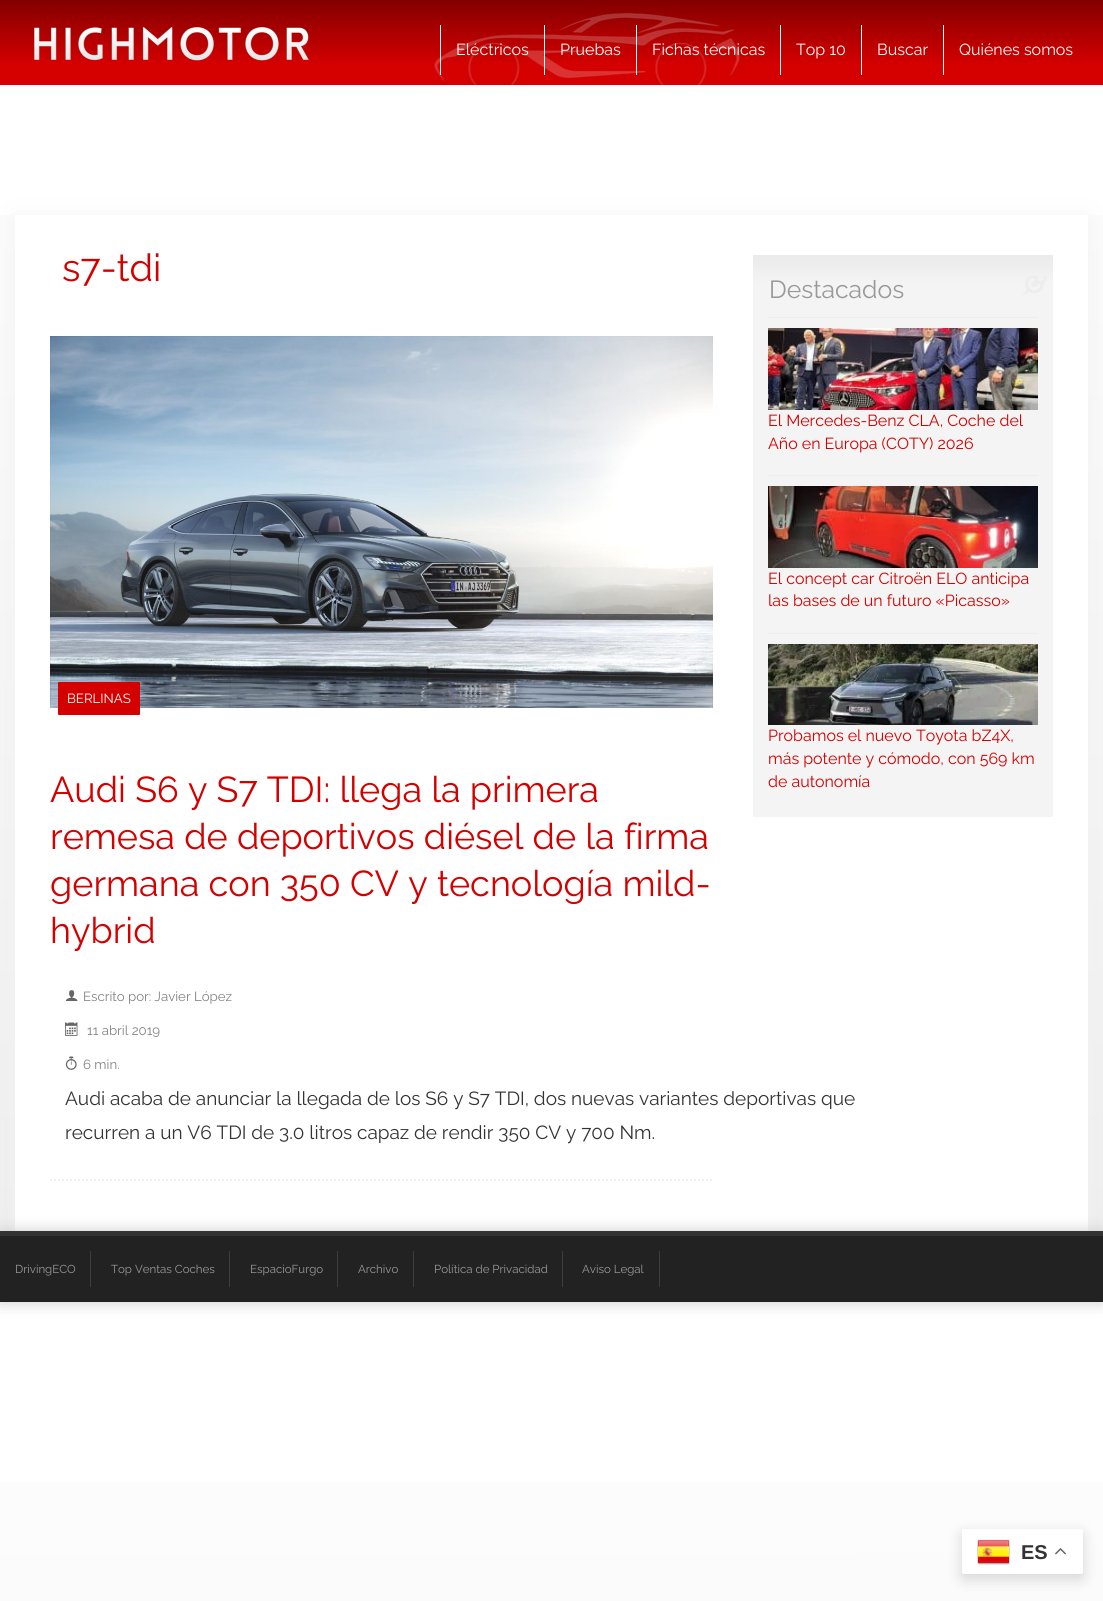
import math
import cairocffi as cairo

surface = cairo.ImageSurface(cairo.FORMAT_RGB24, 1103, 1601)
cr = cairo.Context(surface)
options = cairo.FontOptions()
options.set_hint_metrics(cairo.HINT_METRICS_OFF)
options.set_hint_style(cairo.HINT_STYLE_NONE)
cr.set_font_options(options)
cr.set_miter_limit(4)


def use_color(code):
    cr.set_source_rgb(*(v / 255 for v in bytes.fromhex(code[-6:])))


def round_rect(x, y, w, h, r):
    cr.new_sub_path()
    for i, (u, v) in enumerate([(x + w - r, y + h - r), (x + r, y + h - r), (x + r, y + r), (x + w - r, y + r)]):
        cr.arc(u, v, r, i * math.pi / 2, (i + 1) * math.pi / 2)
    cr.close_path()


def shadow(x, y, w, h, r, blur, alpha):
    cr.push_group_with_content(cairo.CONTENT_ALPHA)
    cr.set_operator(cairo.OPERATOR_SOURCE)
    for i in range(15, -16, -2):
        e = blur * i / 6
        if min(w, h) + 2 * e > 0:
            cr.set_source_rgba(0, 0, 0, alpha * math.erfc((i - 1) / 8.5) / 2)
            round_rect(x - e, y - e, w + 2 * e, h + 2 * e, max(0, min(r + e + blur * .6, min(w, h) / 2 + e)))
            cr.fill()
    cr.mask(cr.pop_group())


def picture(path, x, y, w, h):
    cr.save()
    cr.set_source_surface(cairo.ImageSurface.create_from_png(path), x, y)
    cr.rectangle(x, y, w, h)
    cr.fill()
    cr.restore()


use_color("#ffffff")
cr.paint()
gradient = cairo.LinearGradient(551, 0, 552, 1302)
gradient.add_color_stop_rgba(0, 1, 1, 1, 1)
gradient.add_color_stop_rgba(1, 0.929, 0.929, 0.929, 1)
cr.set_source(gradient)
cr.rectangle(0, 215, 1103, 1016)
cr.fill()
gradient = cairo.LinearGradient(551, 1302, 552, 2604)
gradient.add_color_stop_rgba(0, 1, 1, 1, 1)
gradient.add_color_stop_rgba(1, 0.929, 0.929, 0.929, 1)
cr.set_source(gradient)
cr.rectangle(0, 1482, 1103, 119)
cr.fill()
picture("img1.png", 0, 0, 1103, 85)
picture("img2.png", 34, 27, 275, 34)
use_color("#ffffff")
cr.rectangle(440, 25, 1, 50)
cr.fill()
cr.select_font_face("Raleway")
cr.set_font_size(16)
cr.move_to(456, 55)
cr.show_text("Eléctricos")
cr.rectangle(544, 25, 1, 50)
cr.fill()
cr.move_to(560, 55)
cr.show_text("Pruebas")
cr.rectangle(636, 25, 1, 50)
cr.fill()
cr.move_to(652, 55)
cr.show_text("Fichas técnicas")
cr.rectangle(780, 25, 1, 50)
cr.fill()
cr.move_to(796, 55)
cr.show_text("Top 10")
cr.rectangle(861, 25, 1, 50)
cr.fill()
cr.move_to(877, 55)
cr.show_text("Buscar")
cr.rectangle(943, 25, 1, 50)
cr.fill()
cr.move_to(959, 55)
cr.show_text("Quiénes somos")
use_color("#f1f1f1")
shadow(15, 220, 1073, 1016, 0, 12.5, 1)
use_color("#ffffff")
cr.rectangle(15, 215, 1073, 1016)
cr.fill()
cr.set_font_size(38)
use_color("#d40000")
cr.move_to(62, 281)
cr.show_text("s7-tdi")
cr.new_path()
cr.move_to(50, 1180)
cr.line_to(713, 1180)
use_color("#f1f1f1")
cr.set_dash([2, 2])
cr.stroke()
picture("img3.png", 50, 336, 663, 372)
use_color("#d40000")
round_rect(58, 682, 82, 33, 1)
cr.fill()
cr.set_font_size(13.25)
use_color("#ffffff")
cr.move_to(67, 703)
cr.show_text("BERLINAS")
cr.set_font_size(36)
use_color("#d40000")
cr.move_to(50, 802)
cr.show_text("Audi S6 y S7 TDI: llega la primera")
cr.move_to(50, 849)
cr.show_text("remesa de deportivos diésel de la firma")
cr.move_to(50, 896)
cr.show_text("germana con 350 CV y tecnología mild-")
cr.move_to(50, 943)
cr.show_text("hybrid")
picture("img4.png", 65, 990, 13, 11)
cr.set_font_size(13.25)
use_color("#828282")
cr.move_to(83, 1001)
cr.show_text("Escrito por: Javier López")
picture("img5.png", 65, 1022, 13, 14)
cr.move_to(87, 1035)
cr.show_text("11 abril 2019")
picture("img6.png", 65, 1056, 12, 14)
cr.move_to(83, 1069)
cr.show_text("6 min.")
cr.set_font_size(19)
use_color("#333333")
cr.move_to(65, 1105)
cr.show_text("Audi acaba de anunciar la llegada de los S6 y S7 TDI, dos nuevas variantes deportivas que")
cr.move_to(65, 1139)
cr.show_text("recurren a un V6 TDI de 3.0 litros capaz de rendir 350 CV y 700 Nm.")
gradient = cairo.LinearGradient(903, 255, 903, 817)
gradient.add_color_stop_rgba(0, 0.918, 0.918, 0.918, 1)
gradient.add_color_stop_rgba(0.05, 0.957, 0.957, 0.957, 1)
gradient.add_color_stop_rgba(1, 0.957, 0.957, 0.957, 1)
cr.set_source(gradient)
cr.rectangle(753, 255, 300, 562)
cr.fill()
cr.set_font_size(24.75)
use_color("#999999")
cr.move_to(769, 298)
cr.show_text("Destacados")
picture("img7.png", 1023, 276, 23, 20)
use_color("#ededed")
cr.rectangle(768, 317, 270, 1)
cr.fill()
picture("img8.png", 768, 328, 270, 82)
cr.set_font_size(16)
use_color("#d40000")
cr.move_to(768, 426)
cr.show_text("El Mercedes-Benz CLA, Coche del")
cr.move_to(768, 449)
cr.show_text("Año en Europa (COTY) 2026")
use_color("#ededed")
cr.rectangle(768, 475, 270, 1)
cr.fill()
picture("img9.png", 768, 486, 270, 82)
use_color("#d40000")
cr.move_to(768, 584)
cr.show_text("El concept car Citroën ELO anticipa")
cr.move_to(768, 606)
cr.show_text("las bases de un futuro «Picasso»")
use_color("#ededed")
cr.rectangle(768, 633, 270, 1)
cr.fill()
picture("img10.png", 768, 644, 270, 81)
use_color("#d40000")
cr.move_to(768, 741)
cr.show_text("Probamos el nuevo Toyota bZ4X,")
cr.move_to(768, 764)
cr.show_text("más potente y cómodo, con 569 km")
cr.move_to(768, 787)
cr.show_text("de autonomía")
use_color("#cccccc")
shadow(0, 1231, 1103, 71, 0, 7.5, 1)
use_color("#333333")
cr.rectangle(0, 1231, 1103, 5)
cr.fill()
use_color("#222222")
cr.rectangle(0, 1236, 1103, 66)
cr.fill()
use_color("#3d3d3d")
cr.rectangle(90, 1251, 1, 36)
cr.fill()
cr.set_font_size(11.5)
use_color("#999999")
cr.move_to(15, 1273)
cr.show_text("DrivingECO")
use_color("#3d3d3d")
cr.rectangle(229, 1251, 1, 36)
cr.fill()
use_color("#999999")
cr.move_to(111, 1273)
cr.show_text("Top Ventas Coches")
use_color("#3d3d3d")
cr.rectangle(337, 1251, 1, 36)
cr.fill()
use_color("#999999")
cr.move_to(250, 1273)
cr.show_text("EspacioFurgo")
use_color("#3d3d3d")
cr.rectangle(413, 1251, 1, 36)
cr.fill()
use_color("#999999")
cr.move_to(358, 1273)
cr.show_text("Archivo")
use_color("#3d3d3d")
cr.rectangle(562, 1251, 1, 36)
cr.fill()
use_color("#999999")
cr.move_to(434, 1273)
cr.show_text("Política de Privacidad")
use_color("#3d3d3d")
cr.rectangle(659, 1251, 1, 36)
cr.fill()
use_color("#999999")
cr.move_to(582, 1273)
cr.show_text("Aviso Legal")
use_color("#000000")
shadow(962, 1534, 121, 45, 2, 7.5, 0.15)
use_color("#ffffff")
round_rect(962, 1529, 121, 45, 2)
cr.fill()
picture("img11.png", 977, 1539, 33, 26)
cr.select_font_face("Liberation Sans", cairo.FONT_SLANT_NORMAL, cairo.FONT_WEIGHT_BOLD)
cr.set_font_size(20)
use_color("#333333")
cr.move_to(1021, 1559)
cr.show_text("ES")
picture("img12.png", 1055, 1548, 11, 7)
surface.write_to_png("result.png")
